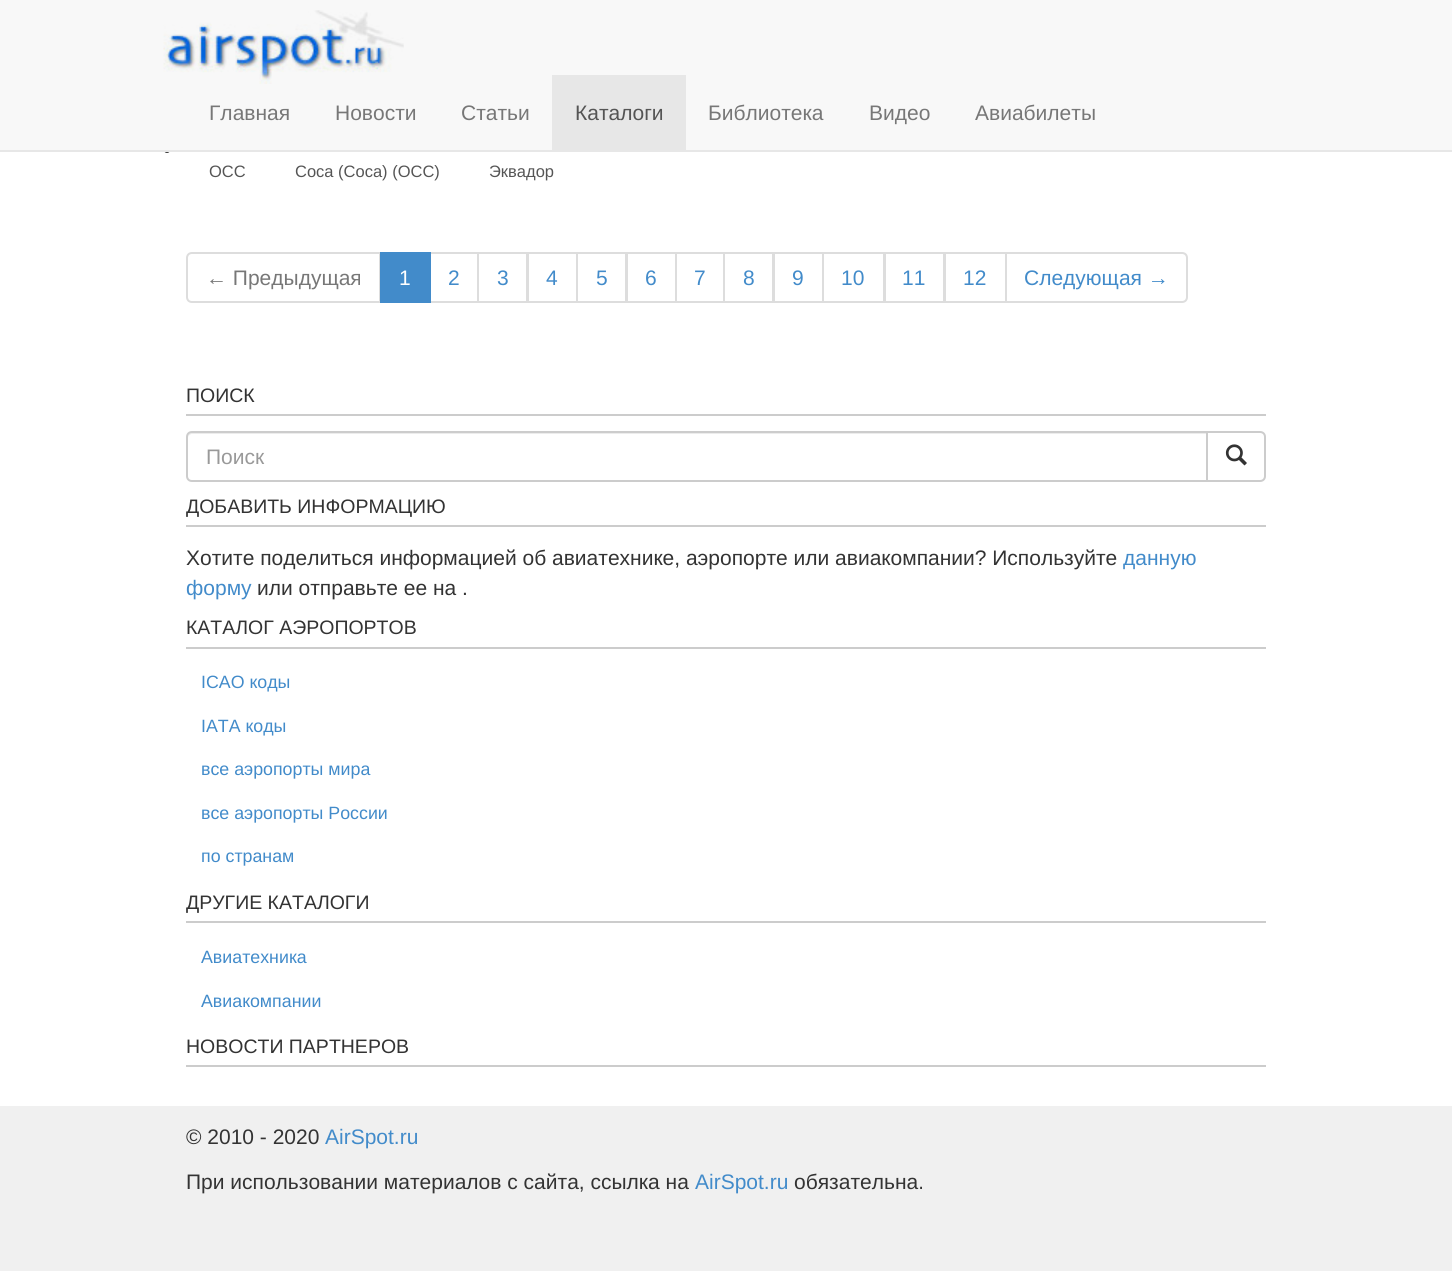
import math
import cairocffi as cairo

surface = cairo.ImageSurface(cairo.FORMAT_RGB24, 1452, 1271)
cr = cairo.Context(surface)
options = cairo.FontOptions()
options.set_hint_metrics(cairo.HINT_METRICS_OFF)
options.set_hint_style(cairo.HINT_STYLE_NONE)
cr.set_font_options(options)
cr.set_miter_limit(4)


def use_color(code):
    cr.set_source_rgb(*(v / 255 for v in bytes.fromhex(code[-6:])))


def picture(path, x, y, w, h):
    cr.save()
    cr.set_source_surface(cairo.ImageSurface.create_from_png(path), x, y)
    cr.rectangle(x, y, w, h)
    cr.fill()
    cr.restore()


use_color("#ffffff")
cr.paint()
use_color("#f8f8f8")
cr.rectangle(0, 0, 1452, 150)
cr.fill()
use_color("#e7e7e7")
cr.rectangle(0, 150, 1452, 2)
cr.fill()
picture("img1.png", 163, 10, 241, 74)
cr.select_font_face("Liberation Sans")
cr.set_font_size(21)
use_color("#777777")
cr.move_to(209, 120)
cr.show_text("Главная")
cr.move_to(335, 120)
cr.show_text("Новости")
cr.move_to(461, 120)
cr.show_text("Статьи")
use_color("#e7e7e7")
cr.rectangle(552, 75, 134, 75)
cr.fill()
use_color("#555555")
cr.move_to(575, 120)
cr.show_text("Каталоги")
use_color("#777777")
cr.move_to(708, 120)
cr.show_text("Библиотека")
cr.move_to(869, 120)
cr.show_text("Видео")
cr.move_to(975, 120)
cr.show_text("Авиабилеты")
use_color("#333333")
cr.new_path()
cr.arc(167, 155, 3, 0, 2 * math.pi)
cr.fill()
use_color("#ffffff")
cr.new_path()
cr.move_to(164, 153)
cr.line_to(1289, 153)
cr.line_to(1289, 186)
cr.curve_to(1289, 189.5, 1286.5, 192, 1283, 192)
cr.line_to(170, 192)
cr.curve_to(166.5, 192, 164, 189.5, 164, 186)
cr.close_path()
cr.fill()
cr.set_font_size(16.5)
use_color("#555555")
cr.move_to(209, 177)
cr.show_text("OCC")
cr.move_to(295, 177)
cr.show_text("Coca (Coca) (OCC)")
cr.move_to(489, 177)
cr.show_text("Эквадор")
cr.new_path()
cr.move_to(192, 253)
cr.line_to(380, 253)
cr.line_to(380, 302)
cr.line_to(192, 302)
cr.curve_to(189, 302, 187, 300, 187, 297)
cr.line_to(187, 258)
cr.curve_to(187, 255, 189, 253, 192, 253)
cr.close_path()
use_color("#dddddd")
cr.stroke()
cr.set_font_size(21)
use_color("#777777")
cr.move_to(206, 285)
cr.show_text("← Предыдущая")
cr.rectangle(430, 253, 48, 49)
use_color("#dddddd")
cr.stroke()
use_color("#428bca")
cr.rectangle(380, 252, 51, 51)
cr.fill()
use_color("#ffffff")
cr.move_to(399, 285)
cr.show_text("1")
use_color("#428bca")
cr.move_to(448, 285)
cr.show_text("2")
cr.rectangle(478, 253, 49, 49)
use_color("#dddddd")
cr.stroke()
use_color("#428bca")
cr.move_to(497, 285)
cr.show_text("3")
cr.rectangle(528, 253, 49, 49)
use_color("#dddddd")
cr.stroke()
use_color("#428bca")
cr.move_to(546, 285)
cr.show_text("4")
cr.rectangle(577, 253, 49, 49)
use_color("#dddddd")
cr.stroke()
use_color("#428bca")
cr.move_to(596, 285)
cr.show_text("5")
cr.rectangle(627, 253, 49, 49)
use_color("#dddddd")
cr.stroke()
use_color("#428bca")
cr.move_to(645, 285)
cr.show_text("6")
cr.rectangle(676, 253, 48, 49)
use_color("#dddddd")
cr.stroke()
use_color("#428bca")
cr.move_to(694, 285)
cr.show_text("7")
cr.rectangle(724, 253, 49, 49)
use_color("#dddddd")
cr.stroke()
use_color("#428bca")
cr.move_to(743, 285)
cr.show_text("8")
cr.rectangle(774, 253, 49, 49)
use_color("#dddddd")
cr.stroke()
use_color("#428bca")
cr.move_to(792, 285)
cr.show_text("9")
cr.rectangle(823, 253, 61, 49)
use_color("#dddddd")
cr.stroke()
use_color("#428bca")
cr.move_to(841, 285)
cr.show_text("10")
cr.rectangle(885, 253, 59, 49)
use_color("#dddddd")
cr.stroke()
use_color("#428bca")
cr.move_to(902, 285)
cr.show_text("11")
cr.rectangle(945, 253, 61, 49)
use_color("#dddddd")
cr.stroke()
use_color("#428bca")
cr.move_to(963, 285)
cr.show_text("12")
use_color("#ffffff")
cr.new_path()
cr.move_to(1006, 253)
cr.line_to(1182, 253)
cr.curve_to(1185, 253, 1187, 255, 1187, 258)
cr.line_to(1187, 297)
cr.curve_to(1187, 300, 1185, 302, 1182, 302)
cr.line_to(1006, 302)
cr.close_path()
cr.fill_preserve()
use_color("#dddddd")
cr.stroke()
use_color("#428bca")
cr.move_to(1024, 285)
cr.show_text("Следующая →")
use_color("#cccccc")
cr.rectangle(186, 414, 1080, 2)
cr.fill()
cr.set_font_size(19.5)
use_color("#333333")
cr.move_to(186, 402)
cr.show_text("ПОИСК")
cr.new_path()
cr.move_to(1207, 432)
cr.line_to(1260, 432)
cr.curve_to(1263, 432, 1265, 434, 1265, 437)
cr.line_to(1265, 476)
cr.curve_to(1265, 479, 1263, 481, 1260, 481)
cr.line_to(1207, 481)
cr.close_path()
use_color("#cccccc")
cr.stroke()
use_color("#ffffff")
cr.new_path()
cr.move_to(192, 431)
cr.line_to(1208, 431)
cr.line_to(1208, 482)
cr.line_to(192, 482)
cr.curve_to(188.5, 482, 186, 479.5, 186, 476)
cr.line_to(186, 437)
cr.curve_to(186, 433.5, 188.5, 431, 192, 431)
cr.close_path()
cr.fill()
use_color("#ececec")
cr.new_path()
cr.move_to(192, 434)
cr.line_to(1206, 434)
cr.line_to(1206, 432)
cr.line_to(193, 432)
cr.curve_to(190, 432, 188, 435, 188, 438)
cr.curve_to(188, 436, 190, 434, 192, 434)
cr.close_path()
cr.fill()
cr.new_path()
cr.move_to(192, 432)
cr.line_to(1207, 432)
cr.line_to(1207, 481)
cr.line_to(192, 481)
cr.curve_to(189, 481, 187, 479, 187, 476)
cr.line_to(187, 437)
cr.curve_to(187, 434, 189, 432, 192, 432)
cr.close_path()
use_color("#cccccc")
cr.stroke()
cr.set_font_size(21)
use_color("#999999")
cr.move_to(206, 464)
cr.show_text("Поиск")
picture("img2.png", 1225, 444, 22, 22)
use_color("#cccccc")
cr.rectangle(186, 525, 1080, 2)
cr.fill()
cr.set_font_size(19.5)
use_color("#333333")
cr.move_to(186, 513)
cr.show_text("ДОБАВИТЬ ИНФОРМАЦИЮ")
cr.set_font_size(21)
cr.move_to(186, 565)
cr.show_text("Хотите поделиться информацией об авиатехнике, аэропорте или авиакомпании? Используйте")
use_color("#428bca")
cr.move_to(1123, 565)
cr.show_text("данную")
cr.move_to(186, 595)
cr.show_text("форму")
use_color("#333333")
cr.move_to(257, 595)
cr.show_text("или отправьте ее на .")
use_color("#cccccc")
cr.rectangle(186, 647, 1080, 2)
cr.fill()
cr.set_font_size(19.5)
use_color("#333333")
cr.move_to(186, 634)
cr.show_text("КАТАЛОГ АЭРОПОРТОВ")
cr.set_font_size(17.8)
use_color("#428bca")
cr.move_to(201, 688)
cr.show_text("ICAO коды")
cr.move_to(201, 732)
cr.show_text("IATA коды")
cr.move_to(201, 775)
cr.show_text("все аэропорты мира")
cr.move_to(201, 819)
cr.show_text("все аэропорты России")
cr.move_to(201, 862)
cr.show_text("по странам")
use_color("#cccccc")
cr.rectangle(186, 921, 1080, 2)
cr.fill()
cr.set_font_size(19.5)
use_color("#333333")
cr.move_to(186, 909)
cr.show_text("ДРУГИЕ КАТАЛОГИ")
cr.set_font_size(17.8)
use_color("#428bca")
cr.move_to(201, 963)
cr.show_text("Авиатехника")
cr.move_to(201, 1007)
cr.show_text("Авиакомпании")
use_color("#cccccc")
cr.rectangle(186, 1065, 1080, 2)
cr.fill()
cr.set_font_size(19.5)
use_color("#333333")
cr.move_to(186, 1053)
cr.show_text("НОВОСТИ ПАРТНЕРОВ")
use_color("#f0f0f0")
cr.rectangle(0, 1106, 1452, 165)
cr.fill()
cr.set_font_size(21)
use_color("#333333")
cr.move_to(186, 1144)
cr.show_text("© 2010 - 2020")
use_color("#428bca")
cr.move_to(325, 1144)
cr.show_text("AirSpot.ru")
use_color("#333333")
cr.move_to(186, 1189)
cr.show_text("При использовании материалов с сайта, ссылка на")
use_color("#428bca")
cr.move_to(695, 1189)
cr.show_text("AirSpot.ru")
use_color("#333333")
cr.move_to(794, 1189)
cr.show_text("обязательна.")
surface.write_to_png("result.png")
